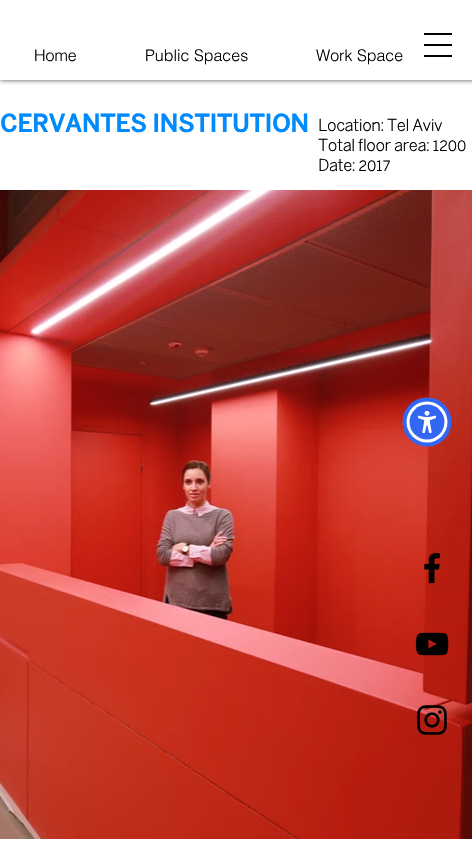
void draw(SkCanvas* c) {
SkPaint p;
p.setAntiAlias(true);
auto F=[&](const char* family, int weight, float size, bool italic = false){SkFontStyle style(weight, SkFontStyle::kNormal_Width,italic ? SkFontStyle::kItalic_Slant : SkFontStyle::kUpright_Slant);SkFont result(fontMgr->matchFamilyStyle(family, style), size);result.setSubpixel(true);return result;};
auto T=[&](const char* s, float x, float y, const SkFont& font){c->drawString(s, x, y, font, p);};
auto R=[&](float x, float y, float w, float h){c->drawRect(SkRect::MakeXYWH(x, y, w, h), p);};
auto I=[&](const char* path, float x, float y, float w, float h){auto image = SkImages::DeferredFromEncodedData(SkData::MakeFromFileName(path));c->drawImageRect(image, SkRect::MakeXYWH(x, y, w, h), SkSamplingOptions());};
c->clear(0xffffffff);
c->save();
c->clipRect(SkRect::MakeXYWH(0,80,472,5));
p.setColor(0xb3000000);
p.setMaskFilter(SkMaskFilter::MakeBlur(kNormal_SkBlurStyle, 2.5));
c->drawRect(SkRect::MakeXYWH(0,0,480,80),p);
p.setMaskFilter(nullptr);
c->restore();
auto f1 = F("helvetica",300,16);
p.setColor(0xff000000);
T("Home",34,61,f1);
T("Public Spaces",145,61,f1);
T("Work Space",316,61,f1);
R(424,33,28,2);
R(424,44,28,2);
R(424,55,28,2);
auto f2 = F("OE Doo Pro",700,24);
p.setColor(0xff008afc);
T("CERVANTES INSTITUTION",0,132,f2);
auto f3 = F("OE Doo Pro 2",700,16);
p.setColor(0xff000000);
T("Location: Tel Aviv",318,131,f3);
T("Total floor area: 1200",318,151,f3);
T("Date: 2017",318,171,f3);
I("1.png",0,190,472,649);
I("2.png",424,553,17,31);
I("3.png",415,632,34,24);
I("4.png",417,705,30,30);
p.setColor(0xff3366f3);
c->drawCircle(427,422,24.5,p);
p.setColor(0xffffffff);
c->drawCircle(427,422,20.5,p);
p.setColor(0xff3366f3);
c->drawCircle(427,422,17.5,p);
I("5.png",417,411,20,22);
}
